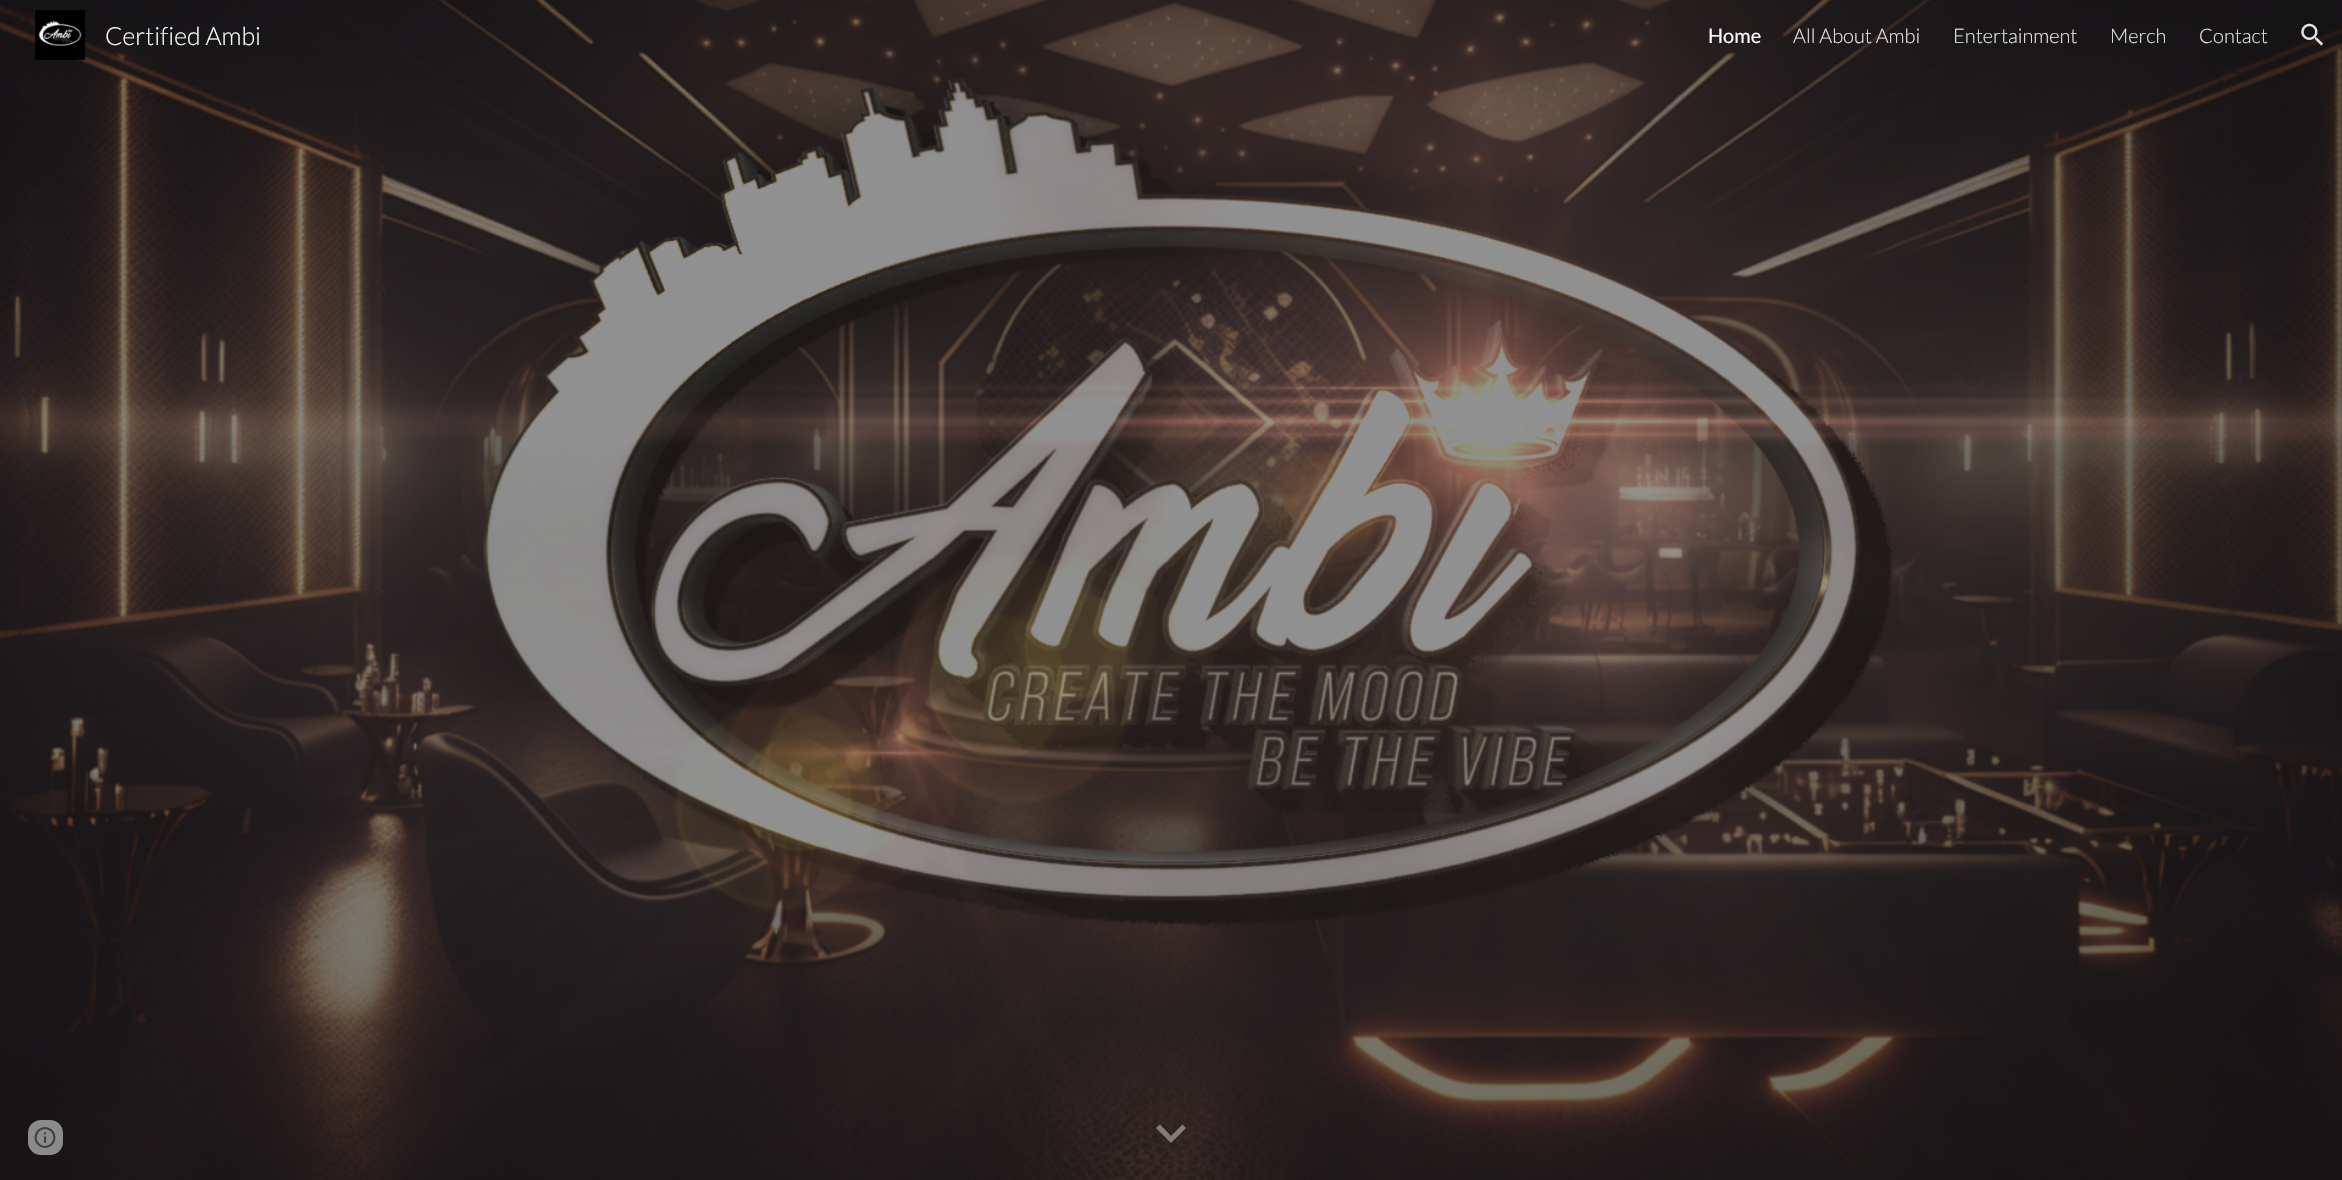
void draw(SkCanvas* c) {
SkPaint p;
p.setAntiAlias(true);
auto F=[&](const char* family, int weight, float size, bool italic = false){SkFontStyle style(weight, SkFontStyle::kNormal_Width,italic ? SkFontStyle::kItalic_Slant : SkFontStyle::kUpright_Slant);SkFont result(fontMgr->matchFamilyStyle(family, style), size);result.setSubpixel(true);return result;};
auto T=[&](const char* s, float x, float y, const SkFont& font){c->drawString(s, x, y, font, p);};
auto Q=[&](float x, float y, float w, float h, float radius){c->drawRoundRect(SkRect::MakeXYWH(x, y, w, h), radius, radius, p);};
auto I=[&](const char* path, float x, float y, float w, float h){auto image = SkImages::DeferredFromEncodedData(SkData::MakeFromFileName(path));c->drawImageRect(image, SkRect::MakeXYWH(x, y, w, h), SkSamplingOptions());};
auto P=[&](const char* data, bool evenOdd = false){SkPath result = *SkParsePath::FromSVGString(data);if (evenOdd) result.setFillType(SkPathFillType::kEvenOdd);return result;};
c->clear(0xffffffff);
I("1.png",0,0,2342,1180);
p.setColor(0x66ffffff);
c->drawPath(P("M1160 1124.5l11 11.5l11.5-11.5l3.5 3.5l-15 15l-15-15z"),p);
I("2.png",35,10,51,50);
auto f1 = F("Lato",300,25);
p.setColor(0xffffffff);
T("Certified Ambi",105,45,f1);
auto f2 = F("Lato",400,20);
T("Home",1708,43,f2);
auto f3 = F("Lato",300,20);
p.setColor(0xffe2e1e1);
T("All About Ambi",1793,43,f3);
T("Entertainment",1953,43,f3);
T("Merch",2110,43,f3);
T("Contact",2199,43,f3);
I("3.png",2301,23,22,23);
p.setColor(0x80ffffff);
Q(28,1120,35,35,13);
I("4.png",34,1127,22,21);
}
